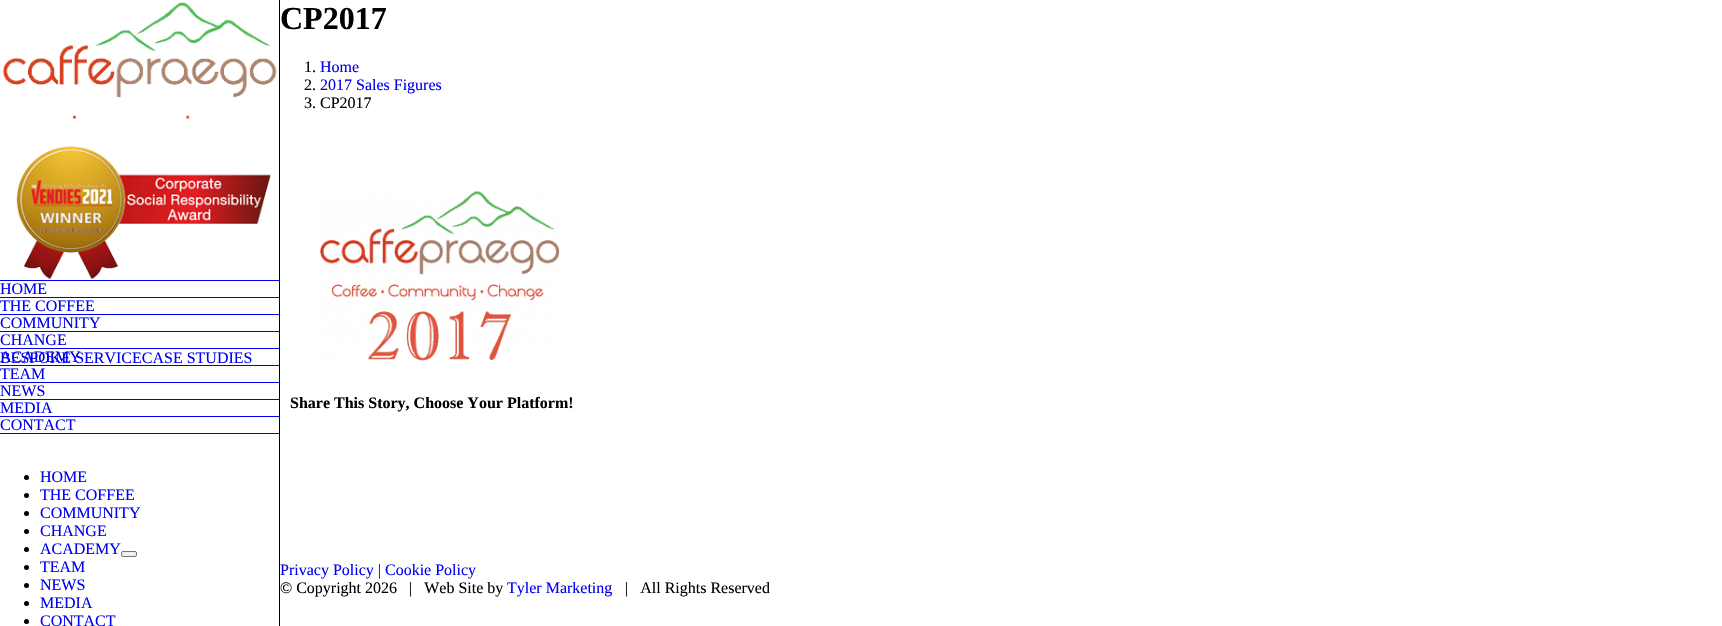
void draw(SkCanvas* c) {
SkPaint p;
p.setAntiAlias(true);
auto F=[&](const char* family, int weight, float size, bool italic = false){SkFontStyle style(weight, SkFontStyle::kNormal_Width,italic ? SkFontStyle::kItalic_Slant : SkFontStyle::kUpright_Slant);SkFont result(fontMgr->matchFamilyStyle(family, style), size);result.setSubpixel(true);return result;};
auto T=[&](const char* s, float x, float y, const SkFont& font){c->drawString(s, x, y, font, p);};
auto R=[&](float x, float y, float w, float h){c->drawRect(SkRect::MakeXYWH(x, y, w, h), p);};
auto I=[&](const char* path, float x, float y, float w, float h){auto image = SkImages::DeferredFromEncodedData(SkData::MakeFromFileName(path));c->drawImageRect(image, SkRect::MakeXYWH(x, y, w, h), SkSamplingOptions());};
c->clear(0xffffffff);
auto f1 = F("Liberation Serif",700,32);
p.setColor(0xff000000);
T("CP2017",280,29,f1);
auto f2 = F("Liberation Serif",400,16);
T("1.",304,72,f2);
p.setColor(0xff0000ee);
T("Home",320,72,f2);
p.setColor(0xff000000);
T("2.",304,90,f2);
p.setColor(0xff0000ee);
T("2017 Sales Figures",320,90,f2);
p.setColor(0xff000000);
T("3. CP2017",304,108,f2);
I("1.png",2,2,275,278);
R(279,0,1,626);
p.setColor(0xff0000ee);
R(0,280,280,1);
R(0,297,280,1);
T("HOME",0,294,f2);
R(0,314,280,1);
T("THE COFFEE",0,311,f2);
R(0,331,280,1);
T("COMMUNITY",0,328,f2);
R(0,348,280,1);
T("CHANGE",0,345,f2);
R(0,365,280,1);
T("ACADEMY",0,362,f2);
T("BESPOKE SERVICECASE STUDIES",0,363,f2);
R(0,382,280,1);
T("TEAM",0,379,f2);
R(0,399,280,1);
T("NEWS",0,396,f2);
R(0,416,280,1);
T("MEDIA",0,413,f2);
R(0,433,280,1);
T("CONTACT",0,430,f2);
p.setColor(0xff000000);
c->drawCircle(26.5,477.5,2.5,p);
p.setColor(0xff0000ee);
T("HOME",40,482,f2);
p.setColor(0xff000000);
c->drawCircle(26.5,495.5,2.5,p);
p.setColor(0xff0000ee);
T("THE COFFEE",40,500,f2);
p.setColor(0xff000000);
c->drawCircle(26.5,513.5,2.5,p);
p.setColor(0xff0000ee);
T("COMMUNITY",40,518,f2);
p.setColor(0xff000000);
c->drawCircle(26.5,531.5,2.5,p);
p.setColor(0xff0000ee);
T("CHANGE",40,536,f2);
p.setColor(0xff000000);
c->drawCircle(26.5,549.5,2.5,p);
p.setColor(0xff0000ee);
T("ACADEMY",40,554,f2);
p.setColor(0xffefefef);
c->drawRoundRect(SkRect::MakeXYWH(121.5,551.5,15,5),1.5,1.5,p);
p.setStroke(true);
p.setStrokeWidth(1);
p.setColor(0xff767676);
c->drawRoundRect(SkRect::MakeXYWH(121.5,551.5,15,5),1.5,1.5,p);
p.setStroke(false);
p.setColor(0xff000000);
c->drawCircle(26.5,567.5,2.5,p);
p.setColor(0xff0000ee);
T("TEAM",40,572,f2);
p.setColor(0xff000000);
c->drawCircle(26.5,585.5,2.5,p);
p.setColor(0xff0000ee);
T("NEWS",40,590,f2);
p.setColor(0xff000000);
c->drawCircle(26.5,603.5,2.5,p);
p.setColor(0xff0000ee);
T("MEDIA",40,608,f2);
p.setColor(0xff000000);
c->drawCircle(26.5,621.5,2.5,p);
p.setColor(0xff0000ee);
T("CONTACT",40,626,f2);
I("2.png",320,191,240,170);
auto f3 = F("Liberation Serif",700,16);
p.setColor(0xff000000);
T("Share This Story, Choose Your Platform!",290,408,f3);
p.setColor(0xff0000ee);
T("Privacy Policy | Cookie Policy",280,575,f2);
p.setColor(0xff000000);
T("© Copyright 2026   |   Web Site by",280,593,f2);
p.setColor(0xff0000ee);
T("Tyler Marketing",507,593,f2);
p.setColor(0xff000000);
T("|   All Rights Reserved",625,593,f2);
}
